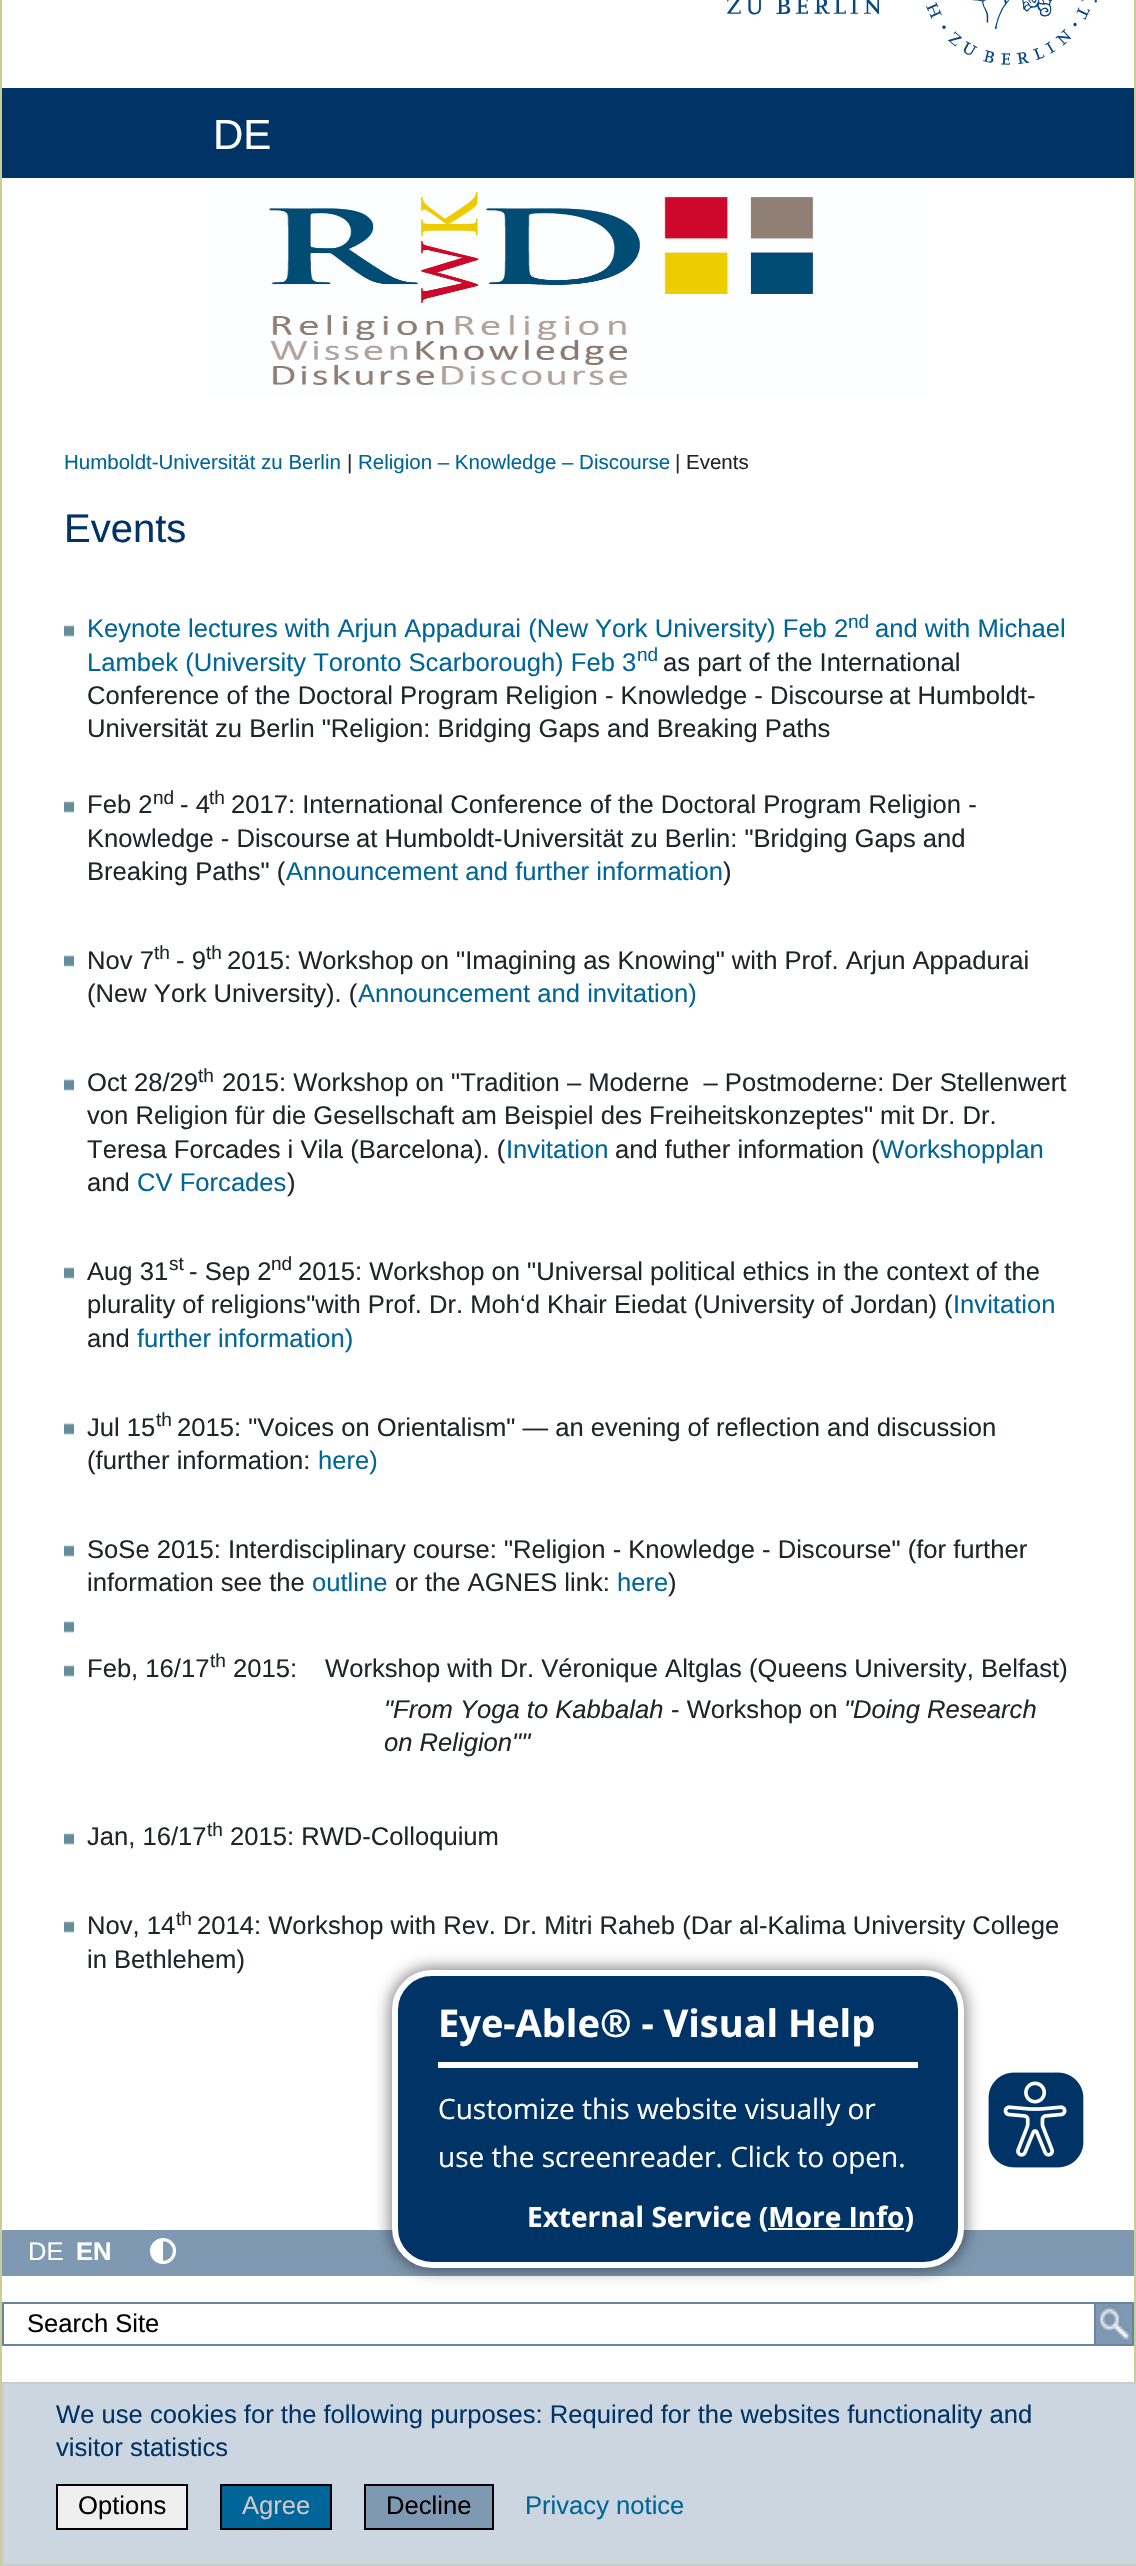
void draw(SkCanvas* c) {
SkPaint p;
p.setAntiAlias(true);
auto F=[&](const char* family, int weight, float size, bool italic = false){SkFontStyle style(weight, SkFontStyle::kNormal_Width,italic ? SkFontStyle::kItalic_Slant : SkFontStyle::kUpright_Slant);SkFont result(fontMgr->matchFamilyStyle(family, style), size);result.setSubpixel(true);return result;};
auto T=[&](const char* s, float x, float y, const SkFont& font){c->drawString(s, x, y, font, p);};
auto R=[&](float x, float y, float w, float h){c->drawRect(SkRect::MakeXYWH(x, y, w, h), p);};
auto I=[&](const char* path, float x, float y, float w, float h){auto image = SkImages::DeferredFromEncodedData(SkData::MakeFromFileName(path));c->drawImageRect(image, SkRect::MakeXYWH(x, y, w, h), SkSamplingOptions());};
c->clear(0xffffffff);
I("1.png",727,0,370,65);
p.setColor(0xff003366);
R(2,88,1132,90);
auto f1 = F("Liberation Sans",400,42);
p.setColor(0xffffffff);
T("DE",213,149,f1);
I("2.png",208,178,720,220);
p.setColor(0xffcccc99);
R(1134,0,2,2382);
R(0,0,2,2566);
auto f2 = F("Liberation Sans",400,20.5);
p.setColor(0xff006699);
T("Humboldt-Universität zu Berlin",64,469,f2);
p.setColor(0xff212529);
T("|",347,469,f2);
p.setColor(0xff006699);
T("Religion – Knowledge – Discourse",358,469,f2);
p.setColor(0xff212529);
T("| Events",675,469,f2);
auto f3 = F("Liberation Sans",400,40);
p.setColor(0xff003366);
T("Events",64,542,f3);
I("3.png",64,625,10,12);
auto f4 = F("Liberation Sans",400,25.6);
p.setColor(0xff006699);
T("Keynote lectures with Arjun Appadurai (New York University) Feb 2",87,637,f4);
auto f5 = F("Liberation Sans",400,19);
T("nd",848,628,f5);
T("and with Michael",875,637,f4);
T("Lambek (University Toronto Scarborough) Feb 3",87,671,f4);
T("nd",637,661,f5);
p.setColor(0xff212529);
T("as part of the International",663,671,f4);
T("Conference of the Doctoral Program Religion - Knowledge - Discourse",87,704,f4);
T("at Humboldt-",889,704,f4);
T("Universität zu Berlin \"Religion: Bridging Gaps and Breaking Paths",87,737,f4);
I("3.png",64,801,10,12);
T("Feb 2",87,813,f4);
T("nd",153,804,f5);
T("- 4",180,813,f4);
T("th",209,804,f5);
T("2017: International Conference of the Doctoral Program Religion -",231,813,f4);
T("Knowledge - Discourse",87,847,f4);
T("at Humboldt-Universität zu Berlin: \"Bridging Gaps and",356,847,f4);
T("Breaking Paths\" (",87,880,f4);
p.setColor(0xff006699);
T("Announcement and further information",286,880,f4);
p.setColor(0xff212529);
T(")",723,880,f4);
I("3.png",64,955,10,12);
T("Nov 7",87,969,f4);
T("th",154,959,f5);
T("- 9",176,969,f4);
T("th",206,959,f5);
T("2015: Workshop on \"Imagining as Knowing\" with Prof. Arjun Appadurai",227,969,f4);
T("(New York University). (",87,1002,f4);
p.setColor(0xff006699);
T("Announcement and invitation)",358,1002,f4);
I("3.png",64,1079,10,12);
p.setColor(0xff212529);
T("Oct 28/29",87,1091,f4);
T("th",198,1082,f5);
T("2015: Workshop on \"Tradition – Moderne  – Postmoderne: Der Stellenwert",222,1091,f4);
T("von Religion für die Gesellschaft am Beispiel des Freiheitskonzeptes\" mit Dr. Dr.",87,1124,f4);
T("Teresa Forcades i Vila (Barcelona). (",87,1158,f4);
p.setColor(0xff006699);
T("Invitation",506,1158,f4);
p.setColor(0xff212529);
T("and futher information (",615,1158,f4);
p.setColor(0xff006699);
T("Workshopplan",880,1158,f4);
p.setColor(0xff212529);
T("and",87,1191,f4);
p.setColor(0xff006699);
T("CV Forcades",137,1191,f4);
p.setColor(0xff212529);
T(")",287,1191,f4);
I("3.png",64,1267,10,12);
T("Aug 31",87,1280,f4);
T("st",169,1270,f5);
T("- Sep 2",189,1280,f4);
T("nd",271,1270,f5);
T("2015: Workshop on \"Universal political ethics in the context of the",298,1280,f4);
T("plurality of religions\"with Prof. Dr. Moh‘d Khair Eiedat (University of Jordan) (",87,1313,f4);
p.setColor(0xff006699);
T("Invitation",953,1313,f4);
p.setColor(0xff212529);
T("and",87,1347,f4);
p.setColor(0xff006699);
T("further information)",137,1347,f4);
I("3.png",64,1423,10,12);
p.setColor(0xff212529);
T("Jul 15",87,1436,f4);
T("th",156,1426,f5);
T("2015: \"Voices on Orientalism\" — an evening of reflection and discussion",177,1436,f4);
T("(further information:",87,1469,f4);
p.setColor(0xff006699);
T("here)",318,1469,f4);
I("3.png",64,1545,10,12);
p.setColor(0xff212529);
T("SoSe 2015: Interdisciplinary course: \"Religion - Knowledge - Discourse\" (for further",87,1558,f4);
T("information see the",87,1591,f4);
p.setColor(0xff006699);
T("outline",312,1591,f4);
p.setColor(0xff212529);
T("or the AGNES link:",395,1591,f4);
p.setColor(0xff006699);
T("here",617,1591,f4);
p.setColor(0xff212529);
T(")",668,1591,f4);
I("3.png",64,1621,10,12);
I("3.png",64,1665,10,12);
T("Feb, 16/17",87,1677,f4);
T("th",210,1667,f5);
T("2015:",233,1677,f4);
T("Workshop with Dr. Véronique Altglas (Queens University, Belfast)",325,1677,f4);
auto f6 = F("Liberation Sans",400,25.6,true);
T("\"From Yoga to Kabbalah",384,1718,f6);
T("- Workshop on",671,1718,f4);
T("\"Doing Research",844,1718,f6);
T("on Religion\"\"",384,1751,f6);
I("3.png",64,1833,10,12);
T("Jan, 16/17",87,1845,f4);
T("th",207,1836,f5);
T("2015: RWD-Colloquium",230,1845,f4);
I("3.png",64,1921,10,12);
T("Nov, 14",87,1934,f4);
T("th",176,1925,f5);
T("2014: Workshop with Rev. Dr. Mitri Raheb (Dar al-Kalima University College",197,1934,f4);
T("in Bethlehem)",87,1968,f4);
p.setColor(0xff8099b2);
R(2,2230,1132,46);
p.setColor(0xffffffff);
T("DE",28,2260,f4);
auto f7 = F("Liberation Sans",700,25.6);
T("EN",76,2260,f7);
I("4.png",150,2238,26,26);
p.setStroke(true);
p.setStrokeWidth(2);
p.setColor(0xff6685a3);
c->drawRect(SkRect::MakeXYWH(3,2303,1130,42),p);
p.setStroke(false);
p.setColor(0xff000000);
T("Search Site",27,2332,f4);
p.setStroke(true);
p.setColor(0xff6685a3);
c->drawRect(SkRect::MakeXYWH(1095,2303,38,42),p);
I("5.png",1096,2304,36,40);
p.setStroke(false);
p.setColor(0x80000000);
p.setMaskFilter(SkMaskFilter::MakeBlur(kNormal_SkBlurStyle, 8));
c->drawRoundRect(SkRect::MakeXYWH(390,1968,576,302),42,42,p);
p.setMaskFilter(nullptr);
p.setColor(0xff003366);
c->drawRoundRect(SkRect::MakeXYWH(395,1973,566,292),37,37,p);
p.setStroke(true);
p.setStrokeWidth(6);
p.setColor(0xffffffff);
c->drawRoundRect(SkRect::MakeXYWH(395,1973,566,292),37,37,p);
p.setStroke(false);
R(438,2062,480,6);
auto f8 = F("Open Sans",700,38);
T("Eye-Able® - Visual Help",438,2037,f8);
auto f9 = F("Open Sans",400,28);
T("Customize this website visually or",438,2119,f9);
T("use the screenreader. Click to open.",438,2167,f9);
auto f10 = F("Open Sans",700,28);
T("External Service (More Info)",527,2227,f10);
R(768,2228,136,2);
I("6.png",988,2072,96,96);
p.setColor(0xffccd6e0);
c->drawRect(SkRect::MakeXYWH(3,2383,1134,182),p);
p.setStroke(true);
p.setStrokeWidth(2);
p.setColor(0xffcccccc);
c->drawRect(SkRect::MakeXYWH(3,2383,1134,182),p);
p.setStroke(false);
p.setColor(0xff003366);
T("We use cookies for the following purposes: Required for the websites functionality and",56,2423,f4);
T("visitor statistics",56,2456,f4);
p.setColor(0xffefefef);
c->drawRect(SkRect::MakeXYWH(57,2485,130,44),p);
p.setStroke(true);
p.setColor(0xff000000);
c->drawRect(SkRect::MakeXYWH(57,2485,130,44),p);
p.setStroke(false);
T("Options",78,2514,f4);
p.setColor(0xff006699);
c->drawRect(SkRect::MakeXYWH(221,2485,110,44),p);
p.setStroke(true);
p.setColor(0xff000000);
c->drawRect(SkRect::MakeXYWH(221,2485,110,44),p);
p.setStroke(false);
p.setColor(0xffd5c7c7);
T("Agree",242,2514,f4);
p.setColor(0xff8099b2);
c->drawRect(SkRect::MakeXYWH(365,2485,128,44),p);
p.setStroke(true);
p.setColor(0xff000000);
c->drawRect(SkRect::MakeXYWH(365,2485,128,44),p);
p.setStroke(false);
T("Decline",386,2514,f4);
p.setColor(0xff006699);
T("Privacy notice",525,2514,f4);
}
